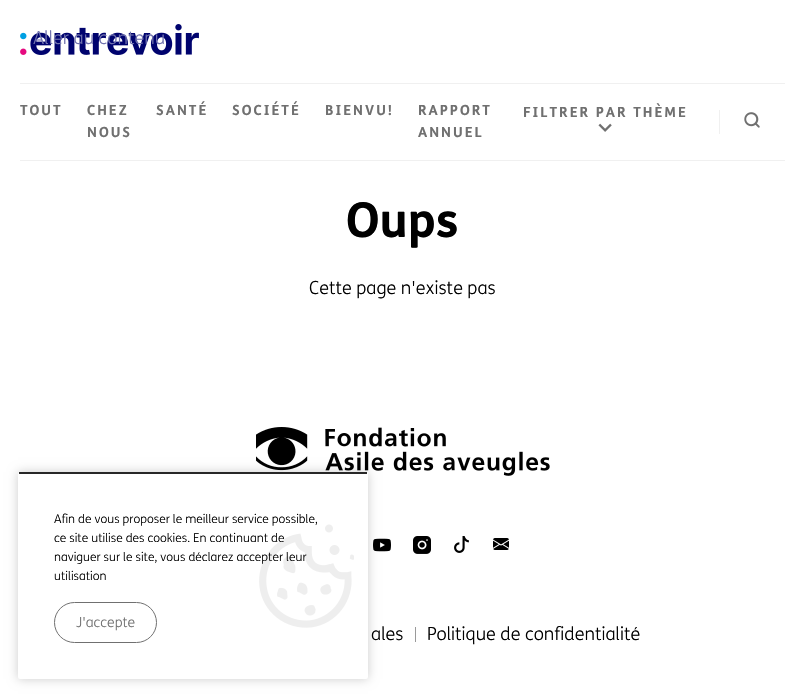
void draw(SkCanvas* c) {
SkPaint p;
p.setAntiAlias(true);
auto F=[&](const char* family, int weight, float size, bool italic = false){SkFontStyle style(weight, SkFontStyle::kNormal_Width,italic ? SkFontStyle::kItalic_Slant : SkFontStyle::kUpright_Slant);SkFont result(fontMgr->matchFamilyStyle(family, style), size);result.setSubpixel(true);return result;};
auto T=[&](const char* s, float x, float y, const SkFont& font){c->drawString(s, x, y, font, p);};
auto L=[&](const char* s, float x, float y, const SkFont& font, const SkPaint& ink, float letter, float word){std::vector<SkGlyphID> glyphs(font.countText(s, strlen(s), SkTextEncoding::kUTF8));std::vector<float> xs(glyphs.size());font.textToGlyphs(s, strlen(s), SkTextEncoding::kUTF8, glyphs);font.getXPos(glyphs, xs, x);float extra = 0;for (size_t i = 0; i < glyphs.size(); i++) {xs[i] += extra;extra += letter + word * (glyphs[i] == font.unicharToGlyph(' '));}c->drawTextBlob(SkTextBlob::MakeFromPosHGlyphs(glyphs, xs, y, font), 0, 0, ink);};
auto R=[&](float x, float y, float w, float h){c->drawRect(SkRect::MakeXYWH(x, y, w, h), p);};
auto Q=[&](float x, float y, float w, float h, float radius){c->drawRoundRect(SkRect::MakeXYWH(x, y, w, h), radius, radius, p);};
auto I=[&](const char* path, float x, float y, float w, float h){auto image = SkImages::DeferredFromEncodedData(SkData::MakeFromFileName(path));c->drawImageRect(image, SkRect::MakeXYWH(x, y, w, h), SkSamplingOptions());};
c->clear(0xffffffff);
I("1.png",20,24,179,31);
auto f1 = F("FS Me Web",300,18);
p.setColor(0xff7072ae);
T("Aller au contenu",33,44,f1);
p.setColor(0xfff0f0f0);
R(20,83,765,1);
R(20,160,765,1);
auto f2 = F("FS Me Web",700,14);
p.setColor(0xff707070);
L("TOUT",20,115,f2,p,2,0);
L("CHEZ",87,115,f2,p,2,0);
L("NOUS",87,137,f2,p,2,0);
L("SANTÉ",156,115,f2,p,2,0);
L("SOCIÉTÉ",232,115,f2,p,2,0);
L("BIENVU!",325,115,f2,p,2,0);
L("RAPPORT",418,115,f2,p,2,0);
L("ANNUEL",418,137,f2,p,2,0);
L("FILTRER PAR THÈME",523,117,f2,p,2,0);
I("2.png",598,123,14,9);
p.setColor(0xfff0f0f0);
R(719,110,1,24);
I("3.png",744,112,16,16);
auto f3 = F("FS Me Web",700,48);
p.setColor(0xff000000);
T("Oups",346,237,f3);
T("Cette page n'existe pas",309,294,f1);
I("5.png",256,427,294,49);
I("6.png",373,538,18,14);
p.setColor(0x33000000);
p.setMaskFilter(SkMaskFilter::MakeBlur(kNormal_SkBlurStyle, 5));
c->drawRect(SkRect::MakeXYWH(18,472,350,207),p);
p.setMaskFilter(nullptr);
p.setColor(0xffffffff);
Q(18,472,350,207,2);
p.setColor(0xff272727);
R(19,472,348,2);
I("4.png",259,524,95,104);
auto f4 = F("FS Me Web",300,12);
p.setColor(0xff000000);
T("Afin de vous proposer le meilleur service possible,",54,523,f4);
T("ce site utilise des cookies. En continuant de",54,542,f4);
T("naviguer sur le site, vous déclarez accepter leur",54,561,f4);
T("utilisation",54,580,f4);
p.setStroke(true);
p.setStrokeWidth(1);
p.setColor(0xff707070);
c->drawRoundRect(SkRect::MakeXYWH(54.5,602.5,102,40),20,20,p);
auto f5 = F("FS Me Web",300,14);
p.setStroke(false);
T("J'accepte",76,627,f5);
I("7.png",413,536,18,18);
I("8.png",454,536,15,17);
I("9.png",493,538,16,12);
p.setColor(0xff000000);
T("ales",371,640,f1);
p.setColor(0xff9a9a9a);
R(415,627,1,15);
p.setColor(0xff000000);
T("Politique de confidentialité",427,640,f1);
}
